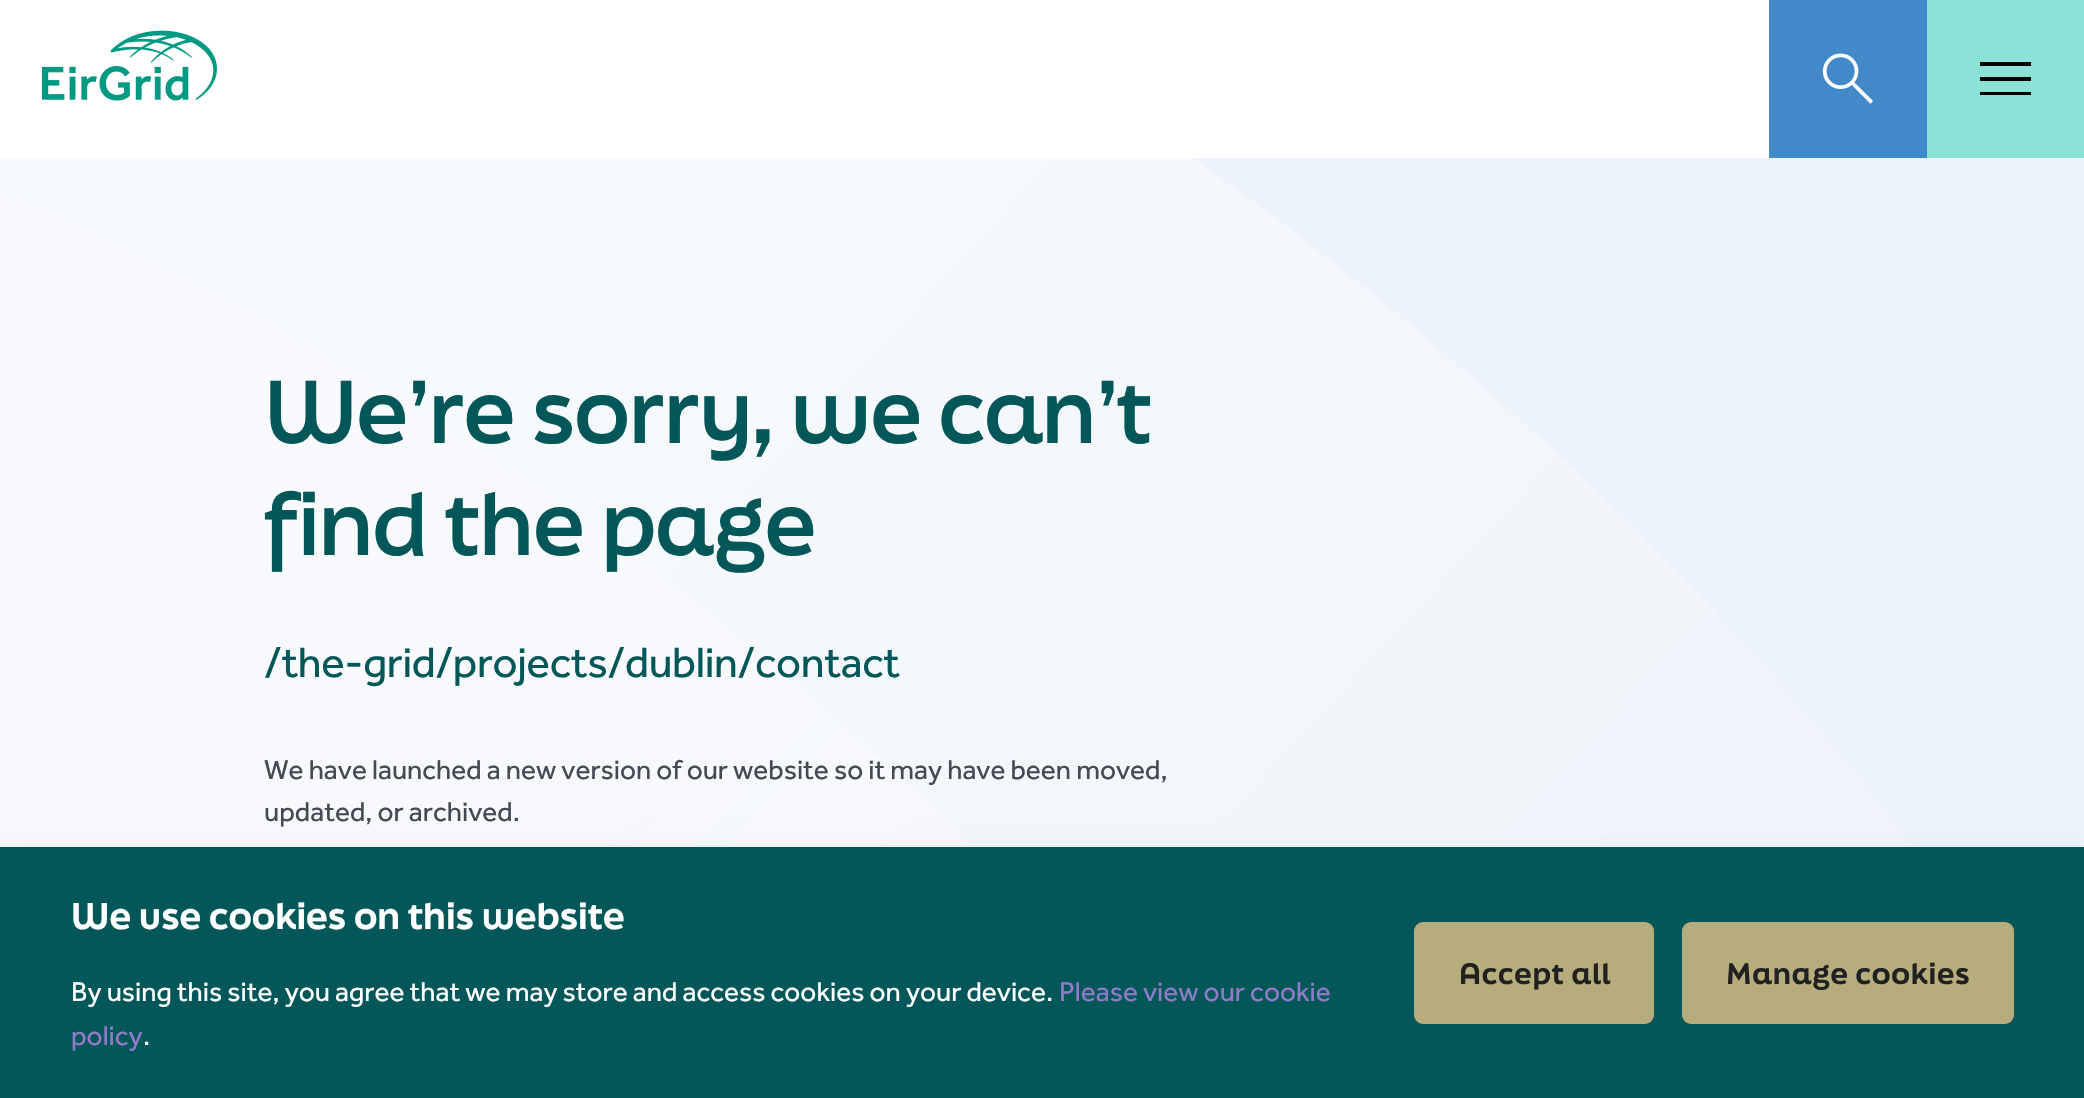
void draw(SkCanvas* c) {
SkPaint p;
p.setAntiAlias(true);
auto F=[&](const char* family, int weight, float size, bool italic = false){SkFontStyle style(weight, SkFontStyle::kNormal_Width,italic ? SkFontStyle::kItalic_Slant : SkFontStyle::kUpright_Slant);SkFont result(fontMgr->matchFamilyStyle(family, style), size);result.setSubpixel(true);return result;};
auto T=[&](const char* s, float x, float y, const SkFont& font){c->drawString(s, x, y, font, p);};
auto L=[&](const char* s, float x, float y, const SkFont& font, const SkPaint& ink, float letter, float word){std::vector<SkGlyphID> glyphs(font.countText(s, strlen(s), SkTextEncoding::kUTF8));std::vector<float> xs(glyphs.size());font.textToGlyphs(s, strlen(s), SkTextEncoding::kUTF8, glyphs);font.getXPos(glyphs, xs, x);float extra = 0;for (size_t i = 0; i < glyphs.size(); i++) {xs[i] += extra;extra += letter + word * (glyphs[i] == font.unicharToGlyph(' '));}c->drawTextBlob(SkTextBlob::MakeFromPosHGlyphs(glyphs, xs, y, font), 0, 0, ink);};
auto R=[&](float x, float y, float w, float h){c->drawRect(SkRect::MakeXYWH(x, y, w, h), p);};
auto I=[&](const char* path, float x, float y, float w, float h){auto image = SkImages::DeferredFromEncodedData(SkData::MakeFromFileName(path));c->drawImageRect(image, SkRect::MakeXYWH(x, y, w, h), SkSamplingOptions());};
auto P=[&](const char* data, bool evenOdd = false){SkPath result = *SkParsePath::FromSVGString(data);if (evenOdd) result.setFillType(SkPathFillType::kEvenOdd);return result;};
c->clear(0xffffffff);
I("1.png",42,30,175,71);
p.setColor(0xff4189c9);
R(1769,0,158,158);
I("2.png",1822,53,51,51);
p.setColor(0xff8ae3d6);
R(1927,0,157,158);
p.setColor(0xff000000);
c->drawPath(P("M1980 95v-3h51v3zm0-14v-4h51v4zm0-15v-4h51v4z"),p);
p.setColor(0xffecf3fa);
R(0,158,2084,689);
{
const SkColor colors[] = {0xfff7f9fd,0xffeef2fa};
const float stops[] = {0,1};
const SkPoint ends[] = {{1524,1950}, {-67,447}};
p.setShader(SkGradientShader::MakeLinear(ends, colors, stops, 2, SkTileMode::kClamp));
p.setAlpha(255);
}
c->drawOval(SkRect::MakeXYWH(-4371,-63,6268,6258),p);
c->save();
c->clipRect(SkRect::MakeXYWH(0,158,2084,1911));
{
const SkColor colors[] = {0x91ffffff,0x00ffffff};
const float stops[] = {0,1};
const SkPoint ends[] = {{244,347}, {1893,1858}};
p.setShader(SkGradientShader::MakeLinear(ends, colors, stops, 2, SkTileMode::kClamp));
p.setAlpha(255);
}
c->drawOval(SkRect::MakeXYWH(-3992,-437.5,6588,6578),p);
c->restore();
auto f1 = F("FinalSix",700,84);
p.setShader(nullptr);
p.setColor(0xff035759);
L("We’re sorry, we can’t",264,443,f1,p,-1.4,0);
L("find the page",264,555,f1,p,-1.4,0);
auto f2 = F("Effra",400,43.75);
L("/the-grid/projects/dublin/contact",264,677,f2,p,-.35,0);
auto f3 = F("Effra",400,28);
p.setColor(0xff444954);
T("We have launched a new version of our website so it may have been moved,",264,779,f3);
T("updated, or archived.",264,821,f3);
p.setColor(0x26000000);
p.setMaskFilter(SkMaskFilter::MakeBlur(kNormal_SkBlurStyle, 14));
c->drawRect(SkRect::MakeXYWH(0,861,2084,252),p);
p.setMaskFilter(nullptr);
p.setColor(0xff035759);
R(0,847,2084,251);
auto f4 = F("FinalSix",800,35);
p.setColor(0xffffffff);
T("We use cookies on this website",71,929,f4);
T("By using this site, you agree that we may store and access cookies on your device.",71,1001,f3);
p.setColor(0xff907bc8);
T("Please view our cookie",1059,1001,f3);
T("policy",71,1045,f3);
p.setColor(0xffffffff);
T(".",143,1045,f3);
p.setColor(0xffb6ac7c);
c->drawRoundRect(SkRect::MakeXYWH(1415,923,238,100),8,8,p);
p.setStroke(true);
p.setStrokeWidth(2);
c->drawRoundRect(SkRect::MakeXYWH(1415,923,238,100),8,8,p);
auto f5 = F("FinalSix",800,28);
p.setStroke(false);
p.setColor(0xff212121);
L("Accept all",1459,984,f5,p,.75,0);
p.setColor(0xffb6ac7c);
c->drawRoundRect(SkRect::MakeXYWH(1683,923,330,100),8,8,p);
p.setStroke(true);
c->drawRoundRect(SkRect::MakeXYWH(1683,923,330,100),8,8,p);
p.setStroke(false);
p.setColor(0xff212121);
L("Manage cookies",1726,984,f5,p,.75,0);
}
